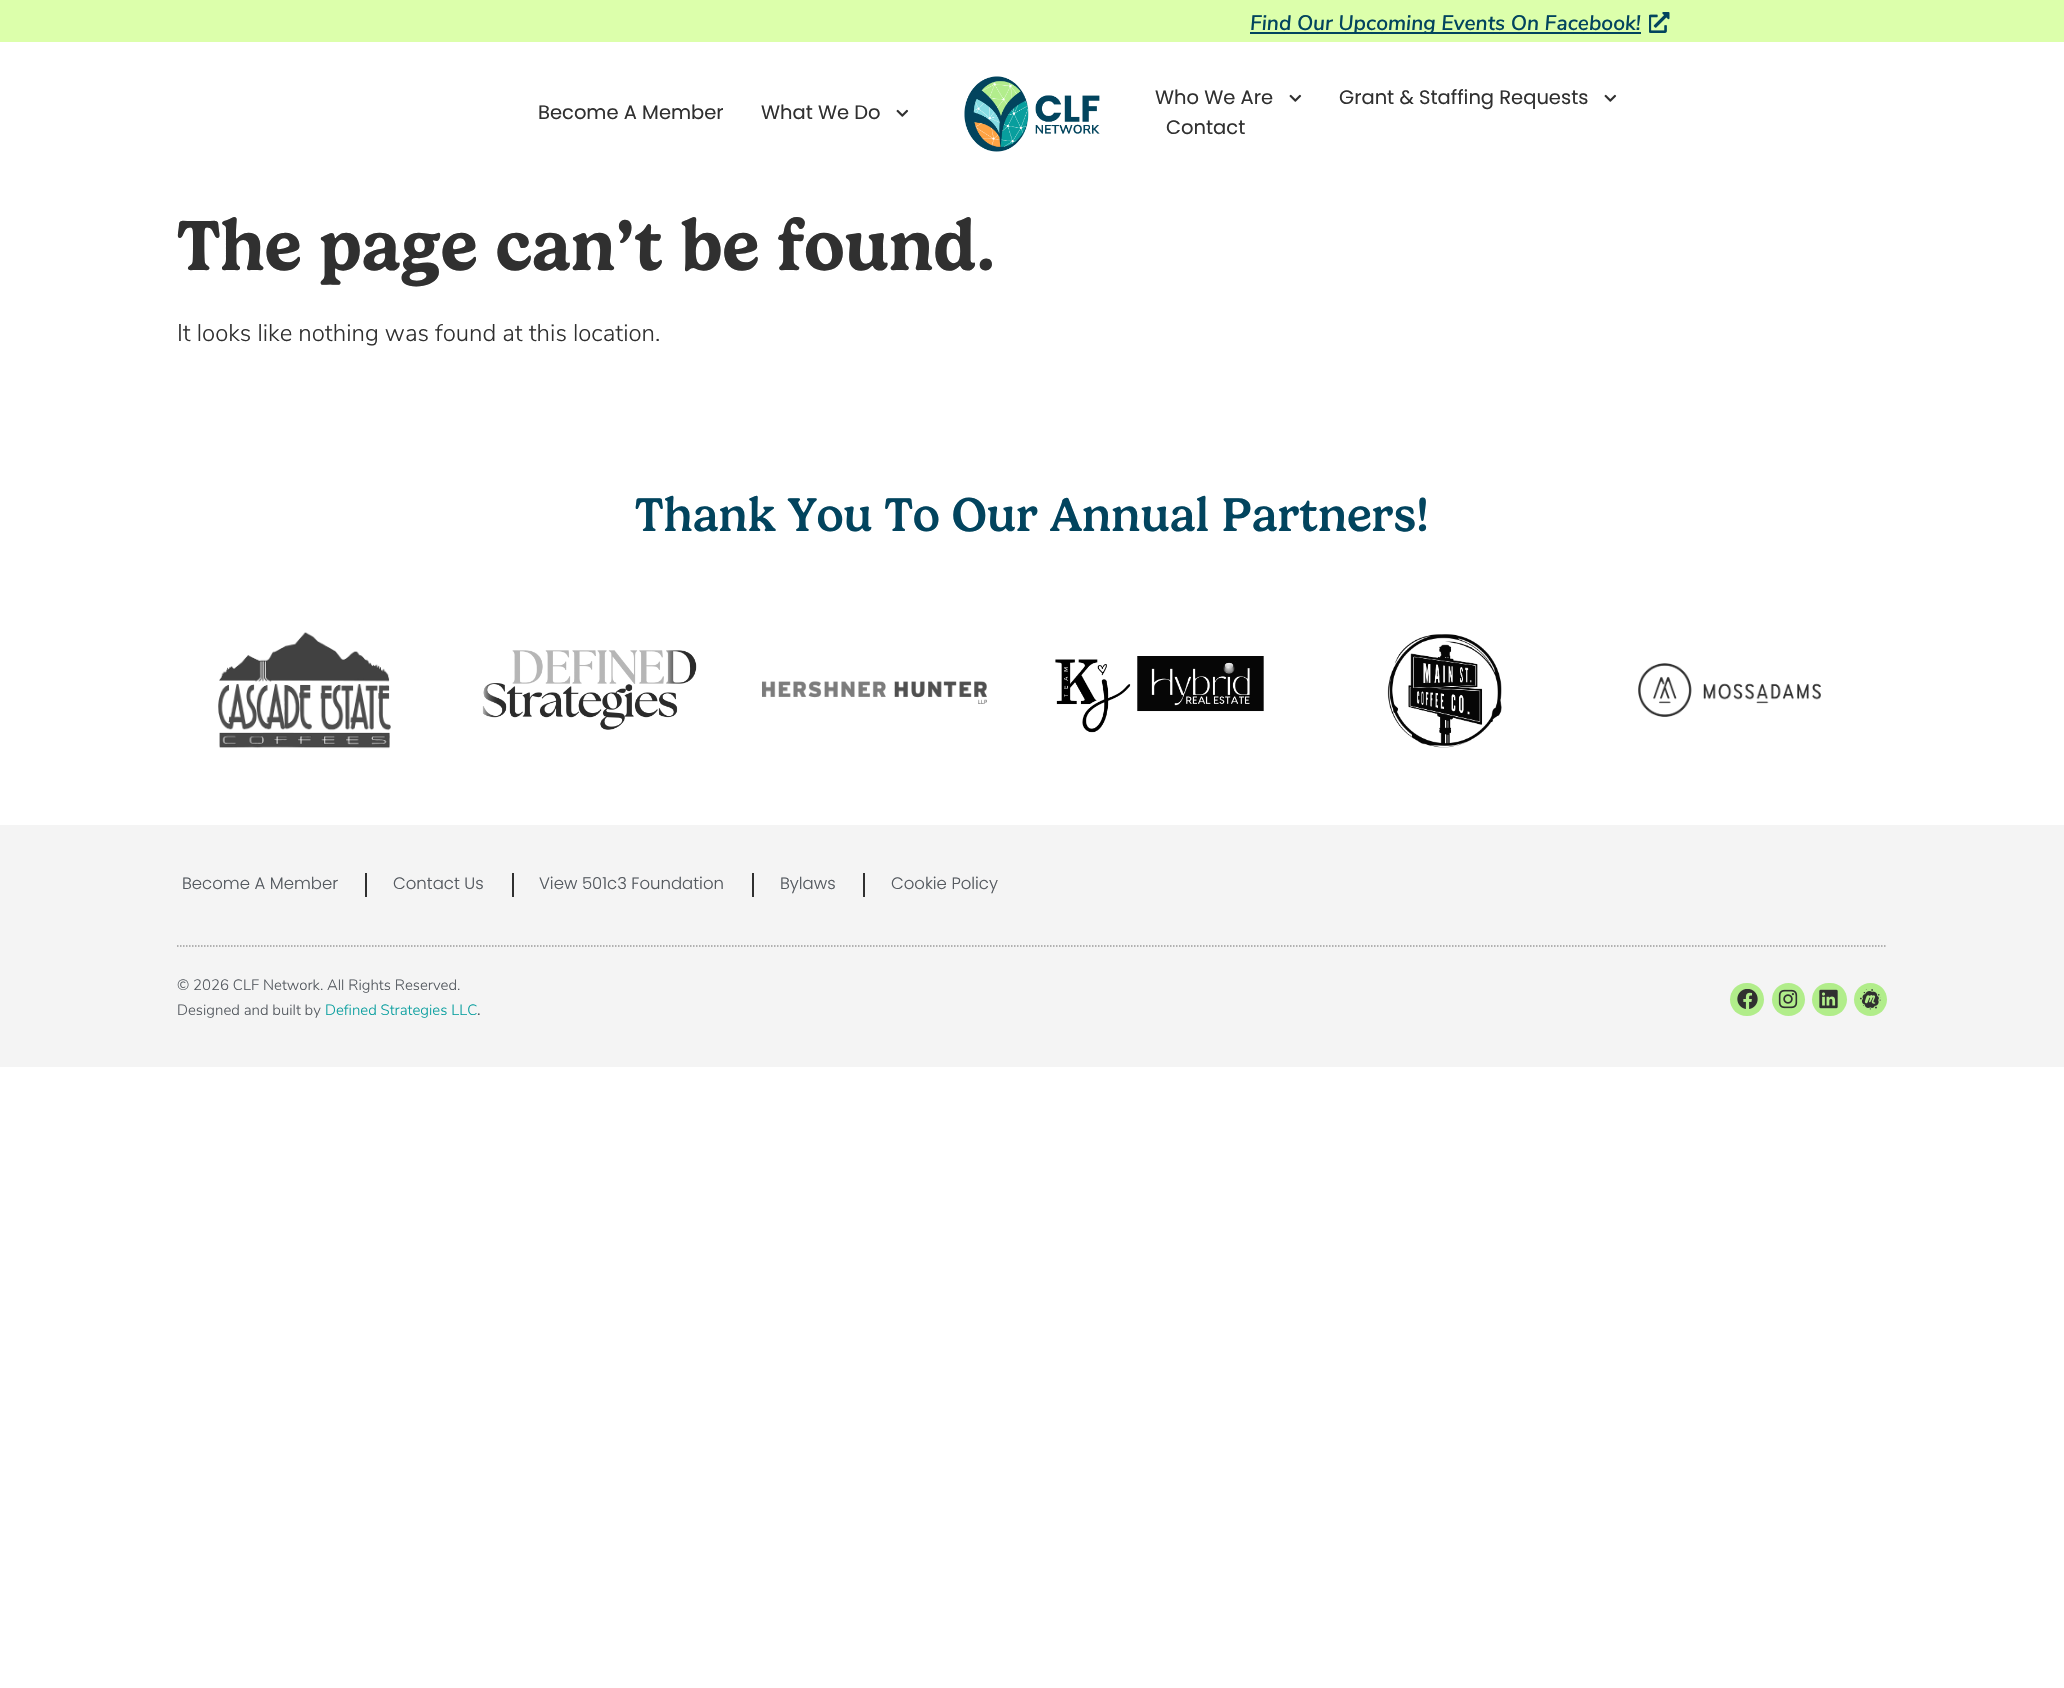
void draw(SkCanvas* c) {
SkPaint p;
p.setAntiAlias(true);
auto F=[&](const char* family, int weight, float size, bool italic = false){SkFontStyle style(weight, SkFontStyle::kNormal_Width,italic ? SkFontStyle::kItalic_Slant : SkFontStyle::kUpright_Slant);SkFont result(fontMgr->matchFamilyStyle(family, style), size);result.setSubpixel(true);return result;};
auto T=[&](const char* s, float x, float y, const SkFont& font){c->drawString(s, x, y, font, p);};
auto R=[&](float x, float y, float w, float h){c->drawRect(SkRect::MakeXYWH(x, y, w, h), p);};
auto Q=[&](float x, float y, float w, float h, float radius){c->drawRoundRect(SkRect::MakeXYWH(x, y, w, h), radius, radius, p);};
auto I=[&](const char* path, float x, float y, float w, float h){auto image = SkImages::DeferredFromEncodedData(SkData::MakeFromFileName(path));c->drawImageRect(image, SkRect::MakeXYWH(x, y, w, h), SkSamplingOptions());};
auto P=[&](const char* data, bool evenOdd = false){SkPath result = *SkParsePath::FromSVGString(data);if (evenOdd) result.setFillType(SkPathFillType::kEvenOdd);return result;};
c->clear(0xffffffff);
p.setColor(0xffdcffab);
R(0,0,2064,42);
p.setColor(0xff02445e);
R(1250,32,391,2);
auto f1 = F("Nunito Sans",600,21,true);
T("Find Our Upcoming Events On Facebook!",1250,30,f1);
I("1.png",1649,12,21,21);
auto f2 = F("Poppins",400,19.5);
p.setColor(0xff303030);
T("Become A Member",538,119,f2);
T("What We Do",761,119,f2);
I("2.png",896,109,13,8);
I("3.png",964,76,136,76);
T("Who We Are",1155,104,f2);
I("2.png",1289,94,13,8);
T("Grant & Staffing Requests",1339,104,f2);
I("2.png",1604,94,13,8);
T("Contact",1166,134,f2);
auto f3 = F("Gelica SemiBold",600,72);
T("The page can’t be found.",177,270,f3);
auto f4 = F("Nunito Sans",300,24);
T("It looks like nothing was found at this location.",177,341,f4);
auto f5 = F("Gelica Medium",500,48);
p.setColor(0xff02445e);
T("Thank You To Our Annual Partners!",635,531,f5);
I("4.png",218,632,173,117);
I("5.png",482,650,215,80);
I("6.png",762,681,225,23);
I("7.png",1055,656,209,77);
I("8.png",1387,634,115,114);
I("9.png",1638,663,183,54);
p.setColor(0xfff4f4f4);
R(0,825,2064,242);
p.setStroke(true);
p.setStrokeWidth(1.5);
p.setColor(0xff9b9b9b);
p.setPathEffect(SkDashPathEffect::Make({{1.5f,1.5f}}, 0));
c->drawPath(P("M177 946h1710"),p);
p.setPathEffect(nullptr);
auto f6 = F("Poppins",300,16.5);
p.setStroke(false);
p.setColor(0xff54595f);
T("Become A Member",182,889,f6);
p.setColor(0xff303030);
R(365,873,2,24);
p.setColor(0xff54595f);
T("Contact Us",393,889,f6);
p.setColor(0xff303030);
R(512,873,2,24);
p.setColor(0xff54595f);
T("View 501c3 Foundation",539,889,f6);
p.setColor(0xff303030);
R(752,873,2,24);
p.setColor(0xff54595f);
T("Bylaws",780,889,f6);
p.setColor(0xff303030);
R(863,873,2,24);
p.setColor(0xff54595f);
T("Cookie Policy",891,889,f6);
auto f7 = F("Nunito Sans",300,15);
T("© 2026 CLF Network. All Rights Reserved.",177,990,f7);
T("Designed and built by",177,1015,f7);
p.setColor(0xff079e9e);
T("Defined Strategies LLC",325,1015,f7);
auto f8 = F("Nunito Sans",400,15);
p.setColor(0xff54595f);
T(".",477,1015,f8);
p.setColor(0xffb1ed8a);
Q(1730,983,34,33,16.5);
I("10.png",1737,989,21,20);
c->drawCircle(1788.5,999.5,16.5,p);
I("11.png",1778,989,20,20);
Q(1812,983,35,33,16.5);
I("12.png",1819,989,19,20);
c->drawCircle(1870.5,999.5,16.5,p);
I("13.png",1860,989,21,21);
}
